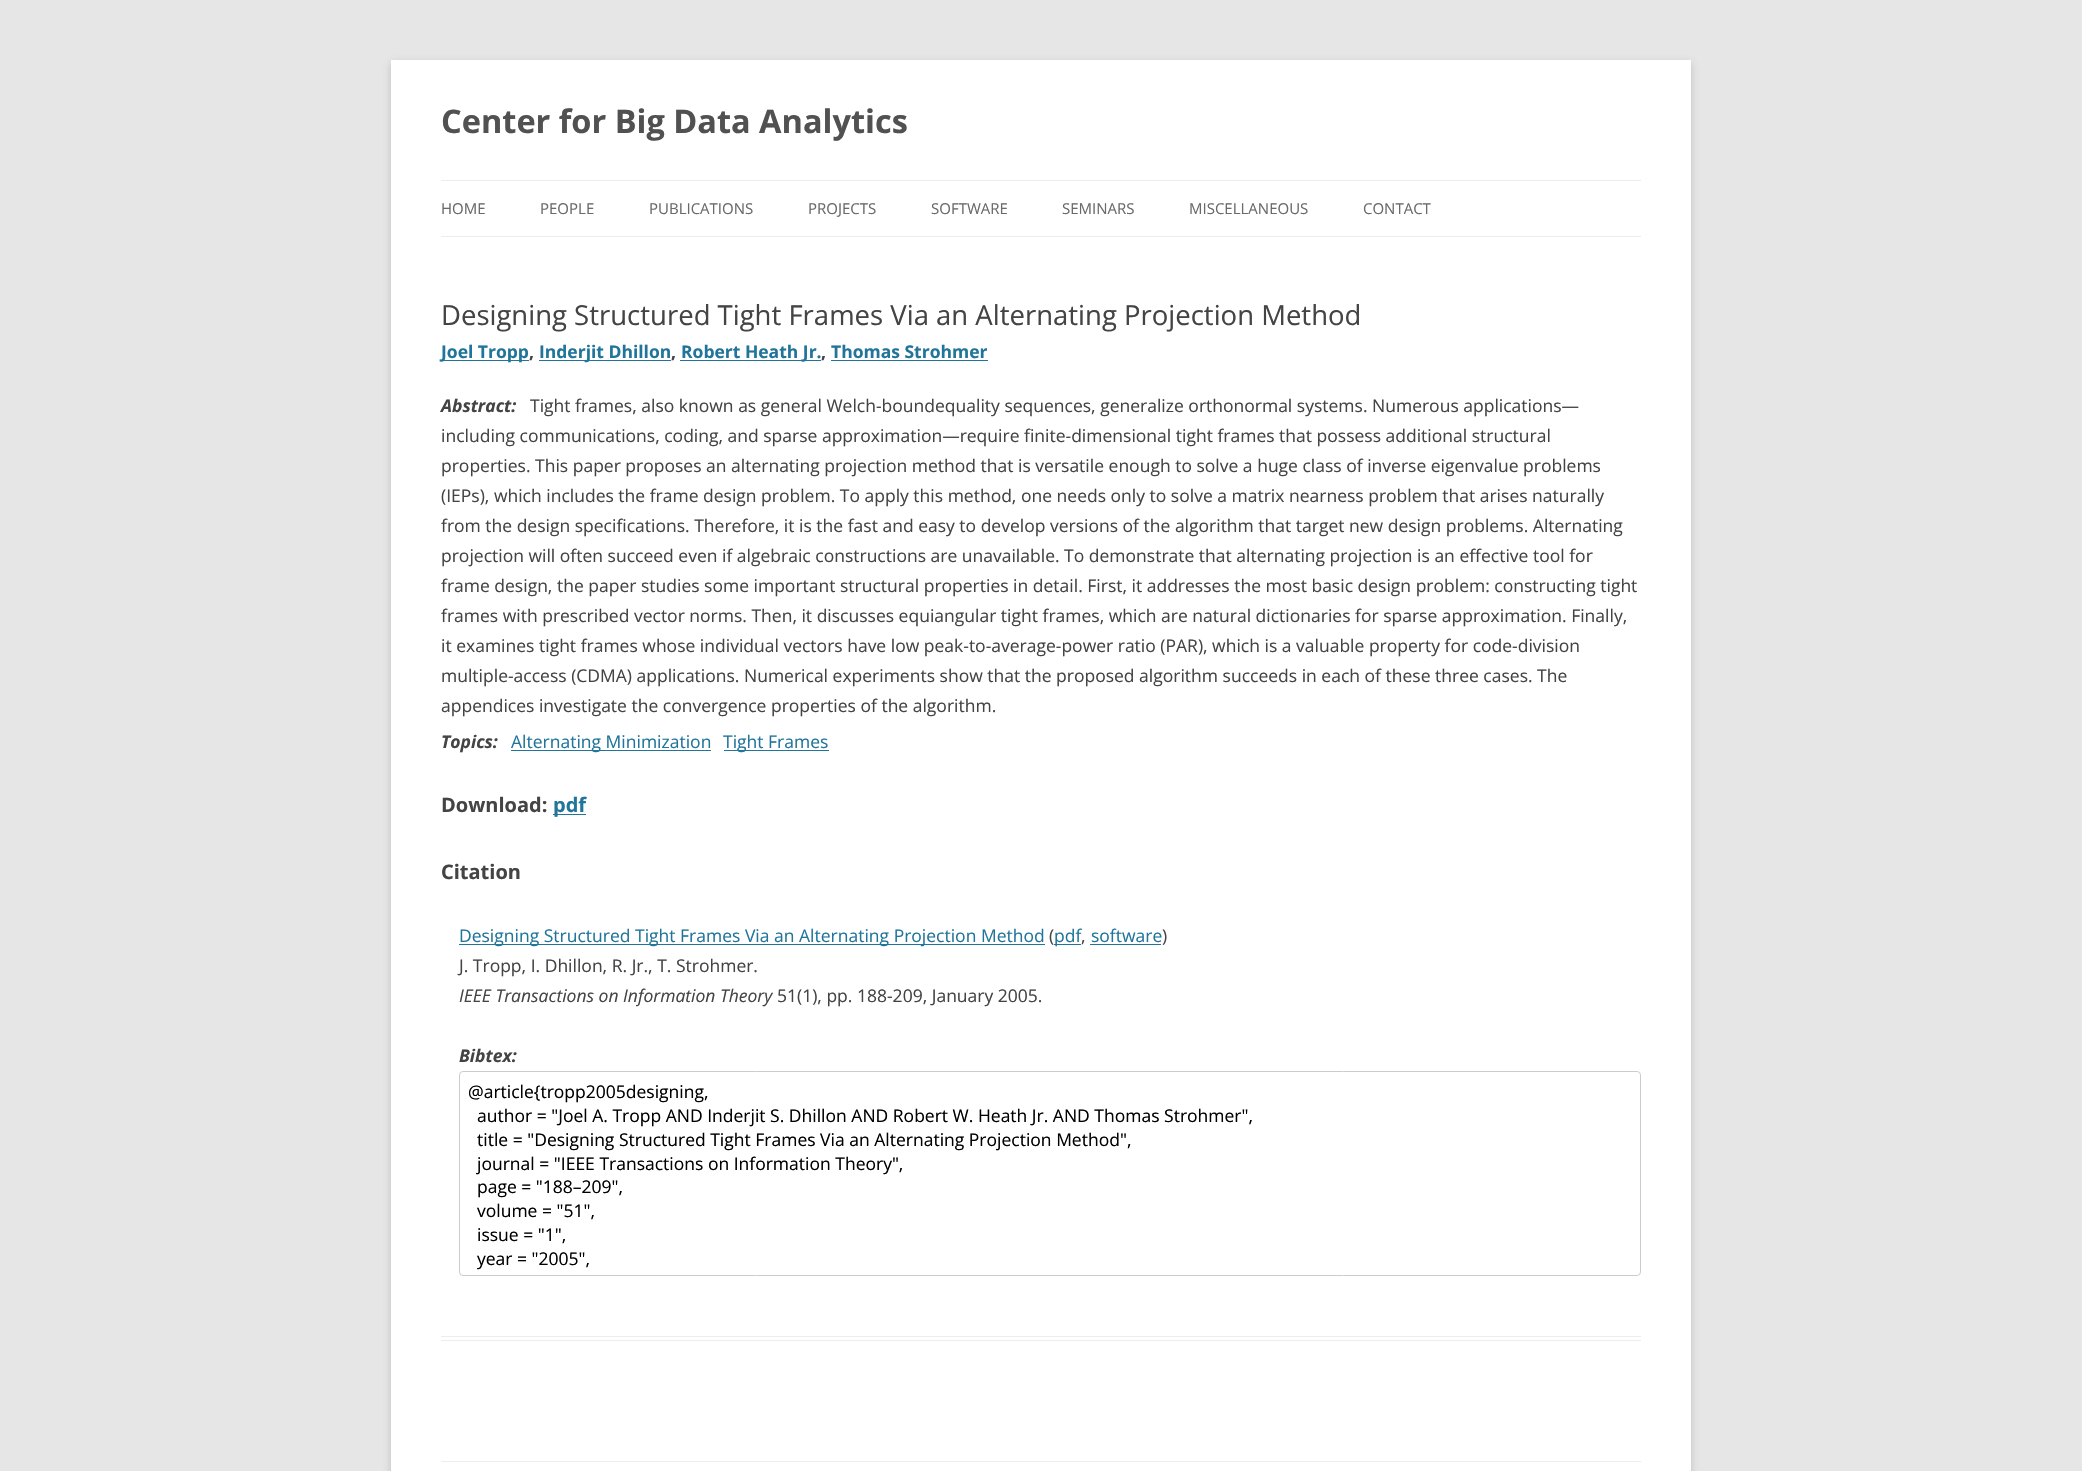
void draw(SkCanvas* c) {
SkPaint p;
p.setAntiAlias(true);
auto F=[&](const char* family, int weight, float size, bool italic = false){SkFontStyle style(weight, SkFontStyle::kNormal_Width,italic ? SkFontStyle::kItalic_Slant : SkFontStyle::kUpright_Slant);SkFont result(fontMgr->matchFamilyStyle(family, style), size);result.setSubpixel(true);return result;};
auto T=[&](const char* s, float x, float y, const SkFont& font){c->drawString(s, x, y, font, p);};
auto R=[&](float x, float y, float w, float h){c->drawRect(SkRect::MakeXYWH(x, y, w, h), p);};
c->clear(0xffe6e6e6);
p.setColor(0x4d646464);
p.setMaskFilter(SkMaskFilter::MakeBlur(kNormal_SkBlurStyle, 4));
c->drawRect(SkRect::MakeXYWH(391,63,1300,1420),p);
p.setMaskFilter(nullptr);
p.setColor(0xffffffff);
R(391,60,1300,1411);
auto f1 = F("Open Sans",700,32.5);
p.setColor(0xff515151);
T("Center for Big Data Analytics",441,133,f1);
p.setColor(0xffededed);
R(441,180,1200,1);
R(441,236,1200,1);
auto f2 = F("Open Sans",400,15);
p.setColor(0xff6a6a6a);
T("HOME",441,214,f2);
T("PEOPLE",540,214,f2);
T("PUBLICATIONS",649,214,f2);
T("PROJECTS",808,214,f2);
T("SOFTWARE",931,214,f2);
T("SEMINARS",1062,214,f2);
T("MISCELLANEOUS",1189,214,f2);
T("CONTACT",1363,214,f2);
p.setColor(0xffededed);
R(441,1336,1200,1);
R(441,1340,1200,1);
auto f3 = F("Open Sans",400,27.5);
p.setColor(0xff444444);
T("Designing Structured Tight Frames Via an Alternating Projection Method",441,325,f3);
p.setColor(0xff21759b);
R(441,360,88,1);
auto f4 = F("Open Sans",700,17.5);
T("Joel Tropp",441,358,f4);
p.setColor(0xff444444);
T(",",529,358,f4);
p.setColor(0xff21759b);
R(539,360,132,1);
T("Inderjit Dhillon",539,358,f4);
p.setColor(0xff444444);
T(",",671,358,f4);
p.setColor(0xff21759b);
R(680,360,141,1);
T("Robert Heath Jr.",681,358,f4);
p.setColor(0xff444444);
T(",",821,358,f4);
p.setColor(0xff21759b);
T("Thomas Strohmer",831,358,f4);
R(831,360,157,1);
auto f5 = F("Open Sans",700,17.5,true);
p.setColor(0xff444444);
T("Abstract:",441,412,f5);
auto f6 = F("Open Sans",400,17.5);
T("Tight frames, also known as general Welch-boundequality sequences, generalize orthonormal systems. Numerous applications—",530,412,f6);
T("including communications, coding, and sparse approximation—require finite-dimensional tight frames that possess additional structural",441,442,f6);
T("properties. This paper proposes an alternating projection method that is versatile enough to solve a huge class of inverse eigenvalue problems",441,472,f6);
T("(IEPs), which includes the frame design problem. To apply this method, one needs only to solve a matrix nearness problem that arises naturally",441,502,f6);
T("from the design specifications. Therefore, it is the fast and easy to develop versions of the algorithm that target new design problems. Alternating",441,532,f6);
T("projection will often succeed even if algebraic constructions are unavailable. To demonstrate that alternating projection is an effective tool for",441,562,f6);
T("frame design, the paper studies some important structural properties in detail. First, it addresses the most basic design problem: constructing tight",441,592,f6);
T("frames with prescribed vector norms. Then, it discusses equiangular tight frames, which are natural dictionaries for sparse approximation. Finally,",441,622,f6);
T("it examines tight frames whose individual vectors have low peak-to-average-power ratio (PAR), which is a valuable property for code-division",441,652,f6);
T("multiple-access (CDMA) applications. Numerical experiments show that the proposed algorithm succeeds in each of these three cases. The",441,682,f6);
T("appendices investigate the convergence properties of the algorithm.",441,712,f6);
T("Topics:",441,748,f5);
p.setColor(0xff21759b);
R(511,750,200,1);
T("Alternating Minimization",511,748,f6);
R(724,750,105,1);
T("Tight Frames",723,748,f6);
auto f7 = F("Open Sans",700,20);
p.setColor(0xff444444);
T("Download:",441,812,f7);
p.setColor(0xff21759b);
R(553,814,33,1);
T("pdf",553,812,f7);
p.setColor(0xff444444);
T("Citation",441,879,f7);
p.setColor(0xff21759b);
R(459,944,586,1);
T("Designing Structured Tight Frames Via an Alternating Projection Method",459,942,f6);
p.setColor(0xff444444);
T("(",1049,942,f6);
p.setColor(0xff21759b);
R(1054,944,27,1);
T("pdf",1054,942,f6);
p.setColor(0xff444444);
T(",",1081,942,f6);
p.setColor(0xff21759b);
T("software",1091,942,f6);
R(1090,944,71,1);
p.setColor(0xff444444);
T(")",1162,942,f6);
T("J. Tropp, I. Dhillon, R. Jr., T. Strohmer.",459,972,f6);
auto f8 = F("Open Sans",400,17.5,true);
T("IEEE Transactions on Information Theory",459,1002,f8);
T("51(1), pp. 188-209, January 2005.",777,1002,f6);
T("Bibtex:",459,1062,f5);
p.setStroke(true);
p.setStrokeWidth(1);
p.setColor(0xffcccccc);
c->drawRoundRect(SkRect::MakeXYWH(459.5,1071.5,1181,204),3.5,3.5,p);
p.setStroke(false);
p.setColor(0xff000000);
T("@article{tropp2005designing,",468,1098,f6);
T("author = \"Joel A. Tropp AND Inderjit S. Dhillon AND Robert W. Heath Jr. AND Thomas Strohmer\",",477,1122,f6);
T("title = \"Designing Structured Tight Frames Via an Alternating Projection Method\",",477,1146,f6);
T("journal = \"IEEE Transactions on Information Theory\",",477,1170,f6);
T("page = \"188–209\",",477,1193,f6);
T("volume = \"51\",",477,1217,f6);
T("issue = \"1\",",477,1241,f6);
T("year = \"2005\",",477,1265,f6);
p.setColor(0xffededed);
R(441,1461,1200,1);
}
